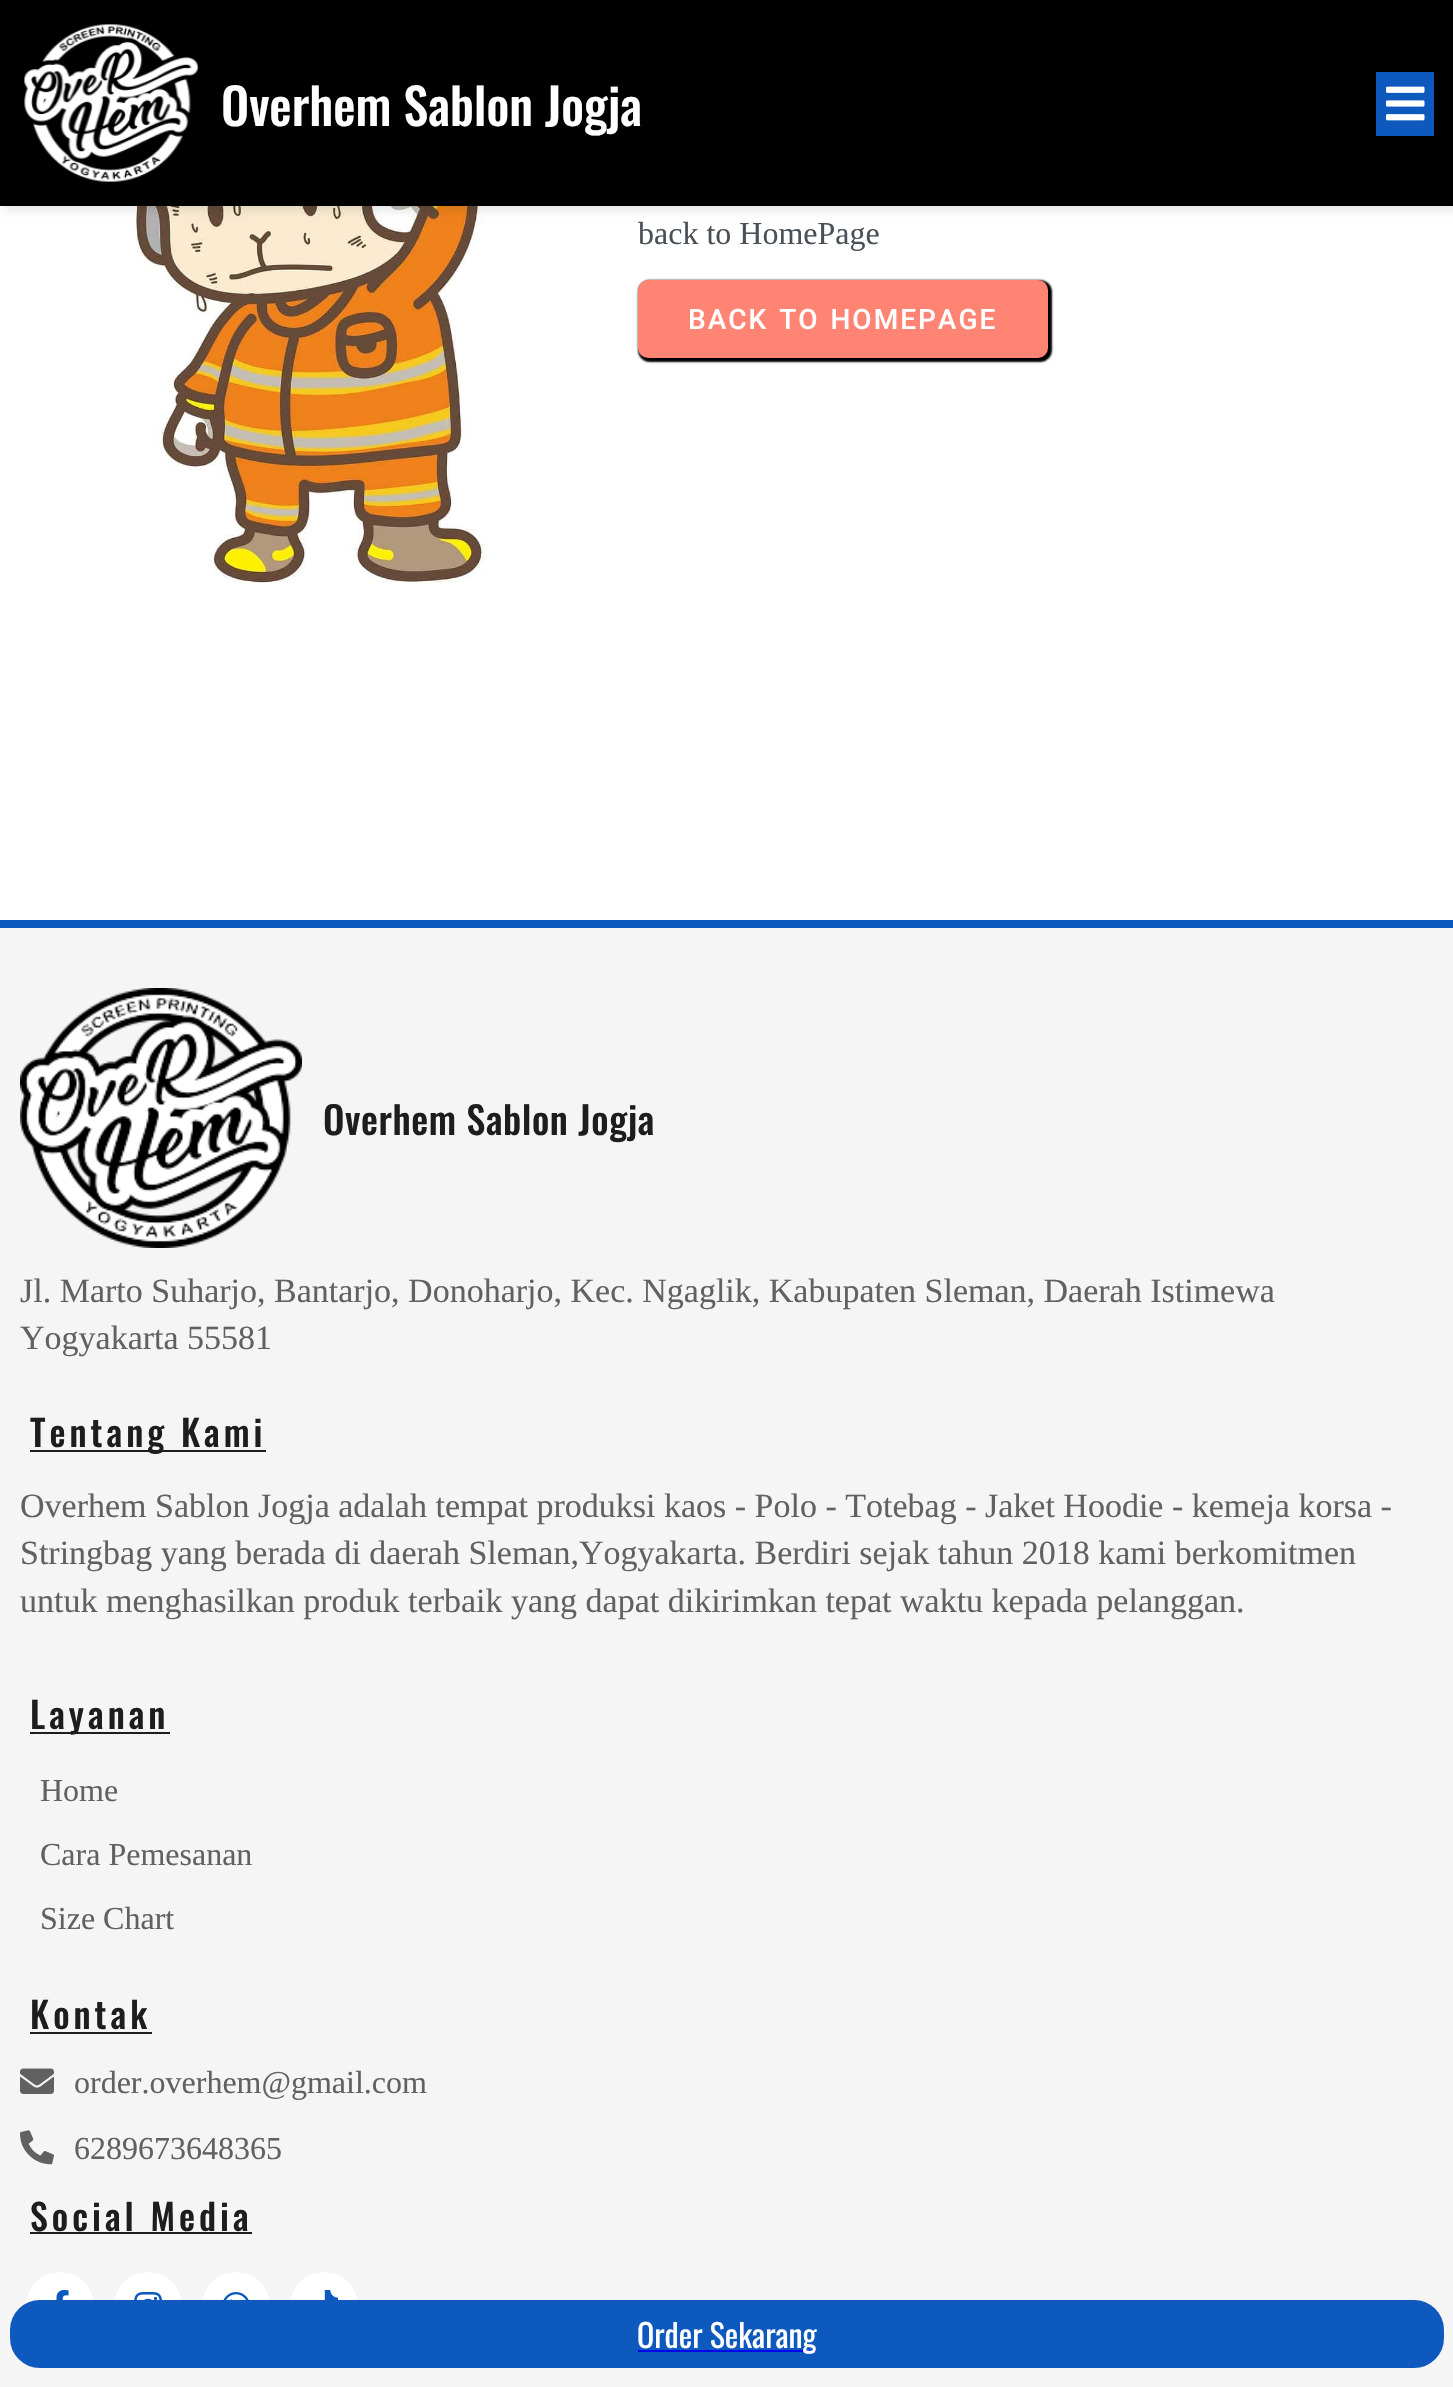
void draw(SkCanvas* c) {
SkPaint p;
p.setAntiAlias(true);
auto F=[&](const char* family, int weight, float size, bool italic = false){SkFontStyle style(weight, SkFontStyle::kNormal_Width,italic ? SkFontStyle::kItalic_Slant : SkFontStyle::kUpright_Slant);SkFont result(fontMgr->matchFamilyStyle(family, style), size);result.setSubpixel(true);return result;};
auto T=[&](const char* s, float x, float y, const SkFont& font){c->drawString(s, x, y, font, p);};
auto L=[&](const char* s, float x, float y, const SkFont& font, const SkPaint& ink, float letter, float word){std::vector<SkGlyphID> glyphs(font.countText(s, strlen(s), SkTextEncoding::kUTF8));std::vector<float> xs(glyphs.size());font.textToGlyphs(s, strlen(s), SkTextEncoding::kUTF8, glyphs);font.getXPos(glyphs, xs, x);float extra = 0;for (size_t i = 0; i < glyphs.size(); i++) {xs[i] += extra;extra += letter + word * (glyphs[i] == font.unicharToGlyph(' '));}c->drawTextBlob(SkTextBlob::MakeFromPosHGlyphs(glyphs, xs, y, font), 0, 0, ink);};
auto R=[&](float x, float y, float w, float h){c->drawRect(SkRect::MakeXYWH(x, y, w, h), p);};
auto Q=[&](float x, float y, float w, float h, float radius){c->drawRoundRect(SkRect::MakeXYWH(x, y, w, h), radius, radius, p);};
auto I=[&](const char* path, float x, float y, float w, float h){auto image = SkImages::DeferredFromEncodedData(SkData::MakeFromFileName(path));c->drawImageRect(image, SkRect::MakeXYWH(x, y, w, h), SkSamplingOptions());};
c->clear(0xffffffff);
I("3.png",78,206,412,377);
p.setColor(0x1a000000);
p.setMaskFilter(SkMaskFilter::MakeBlur(kNormal_SkBlurStyle, 5));
c->drawRect(SkRect::MakeXYWH(4,4,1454,206),p);
p.setMaskFilter(nullptr);
p.setColor(0xff000000);
R(0,0,1453,206);
I("1.png",23,24,176,158);
auto f1 = F("Oswald",500,50);
p.setColor(0xffffffff);
T("Overhem Sablon Jogja",221,126,f1);
p.setColor(0xff0e59bd);
R(1376,72,58,64);
I("2.png",1386,86,39,35);
auto f2 = F("Liberation Serif",400,32);
p.setColor(0xff495057);
T("back to HomePage",638,244,f2);
p.setColor(0xff000000);
p.setMaskFilter(SkMaskFilter::MakeBlur(kNormal_SkBlurStyle, 1));
c->drawRoundRect(SkRect::MakeXYWH(638,280,414,82),12,12,p);
p.setMaskFilter(nullptr);
p.setColor(0xffff8474);
Q(638,280,410,78,10);
auto f3 = F("Roboto",500,28);
p.setColor(0xffffffff);
L("BACK TO HOMEPAGE",688,329,f3,p,2,2);
p.setColor(0xfff5f5f5);
R(0,928,1453,1459);
p.setColor(0xff0e59bd);
R(0,920,1453,8);
I("4.png",20,988,282,260);
auto f4 = F("Oswald",500,38);
p.setColor(0xff1d1d1d);
L("Overhem Sablon Jogja",323,1135,f4,p,.6,0);
auto f5 = F("Liberation Serif",400,34);
p.setColor(0xff616161);
T("Jl. Marto Suharjo, Bantarjo, Donoharjo, Kec. Ngaglik, Kabupaten Sleman, Daerah Istimewa",20,1302,f5);
T("Yogyakarta 55581",20,1349,f5);
p.setColor(0xff1d1d1d);
R(30,1450,236,2);
auto f6 = F("Oswald",500,36);
L("Tentang Kami",30,1447,f6,p,4,0);
p.setColor(0xff616161);
T("Overhem Sablon Jogja adalah tempat produksi kaos - Polo - Totebag - Jaket Hoodie - kemeja korsa -",20,1517,f5);
T("Stringbag yang berada di daerah Sleman,Yogyakarta. Berdiri sejak tahun 2018 kami berkomitmen",20,1564,f5);
T("untuk menghasilkan produk terbaik yang dapat dikirimkan tepat waktu kepada pelanggan.",20,1612,f5);
p.setColor(0xff1d1d1d);
R(30,1732,140,2);
L("Layanan",30,1729,f6,p,4,0);
p.setColor(0xff616161);
T("Home",40,1801,f2);
T("Cara Pemesanan",40,1865,f2);
T("Size Chart",40,1929,f2);
p.setColor(0xff1d1d1d);
L("Kontak",30,2029,f6,p,4,0);
R(30,2032,122,2);
I("5.png",20,2068,34,26);
p.setColor(0xff616161);
T("order.overhem@gmail.com",74,2093,f2);
I("6.png",20,2130,34,35);
T("6289673648365",74,2159,f2);
p.setColor(0xff1d1d1d);
L("Social Media",30,2231,f6,p,4,0);
R(30,2232,222,2);
p.setColor(0xffffffff);
c->drawCircle(60,2306,34,p);
I("7.png",56,2290,13,10);
c->drawCircle(148,2306,34,p);
I("8.png",134,2292,28,8);
c->drawCircle(236,2306,34,p);
I("9.png",223,2292,26,8);
c->drawCircle(324,2306,34,p);
I("10.png",324,2290,14,10);
p.setColor(0xff0e59bd);
c->drawRoundRect(SkRect::MakeXYWH(11,2301,1432,66),29,29,p);
p.setStroke(true);
p.setStrokeWidth(2);
c->drawRoundRect(SkRect::MakeXYWH(11,2301,1432,66),29,29,p);
p.setStroke(false);
p.setColor(0xff0000ee);
R(638,2350,178,2);
auto f7 = F("Oswald",400,32);
p.setColor(0xffffffff);
T("Order Sekarang",637,2348,f7);
}
